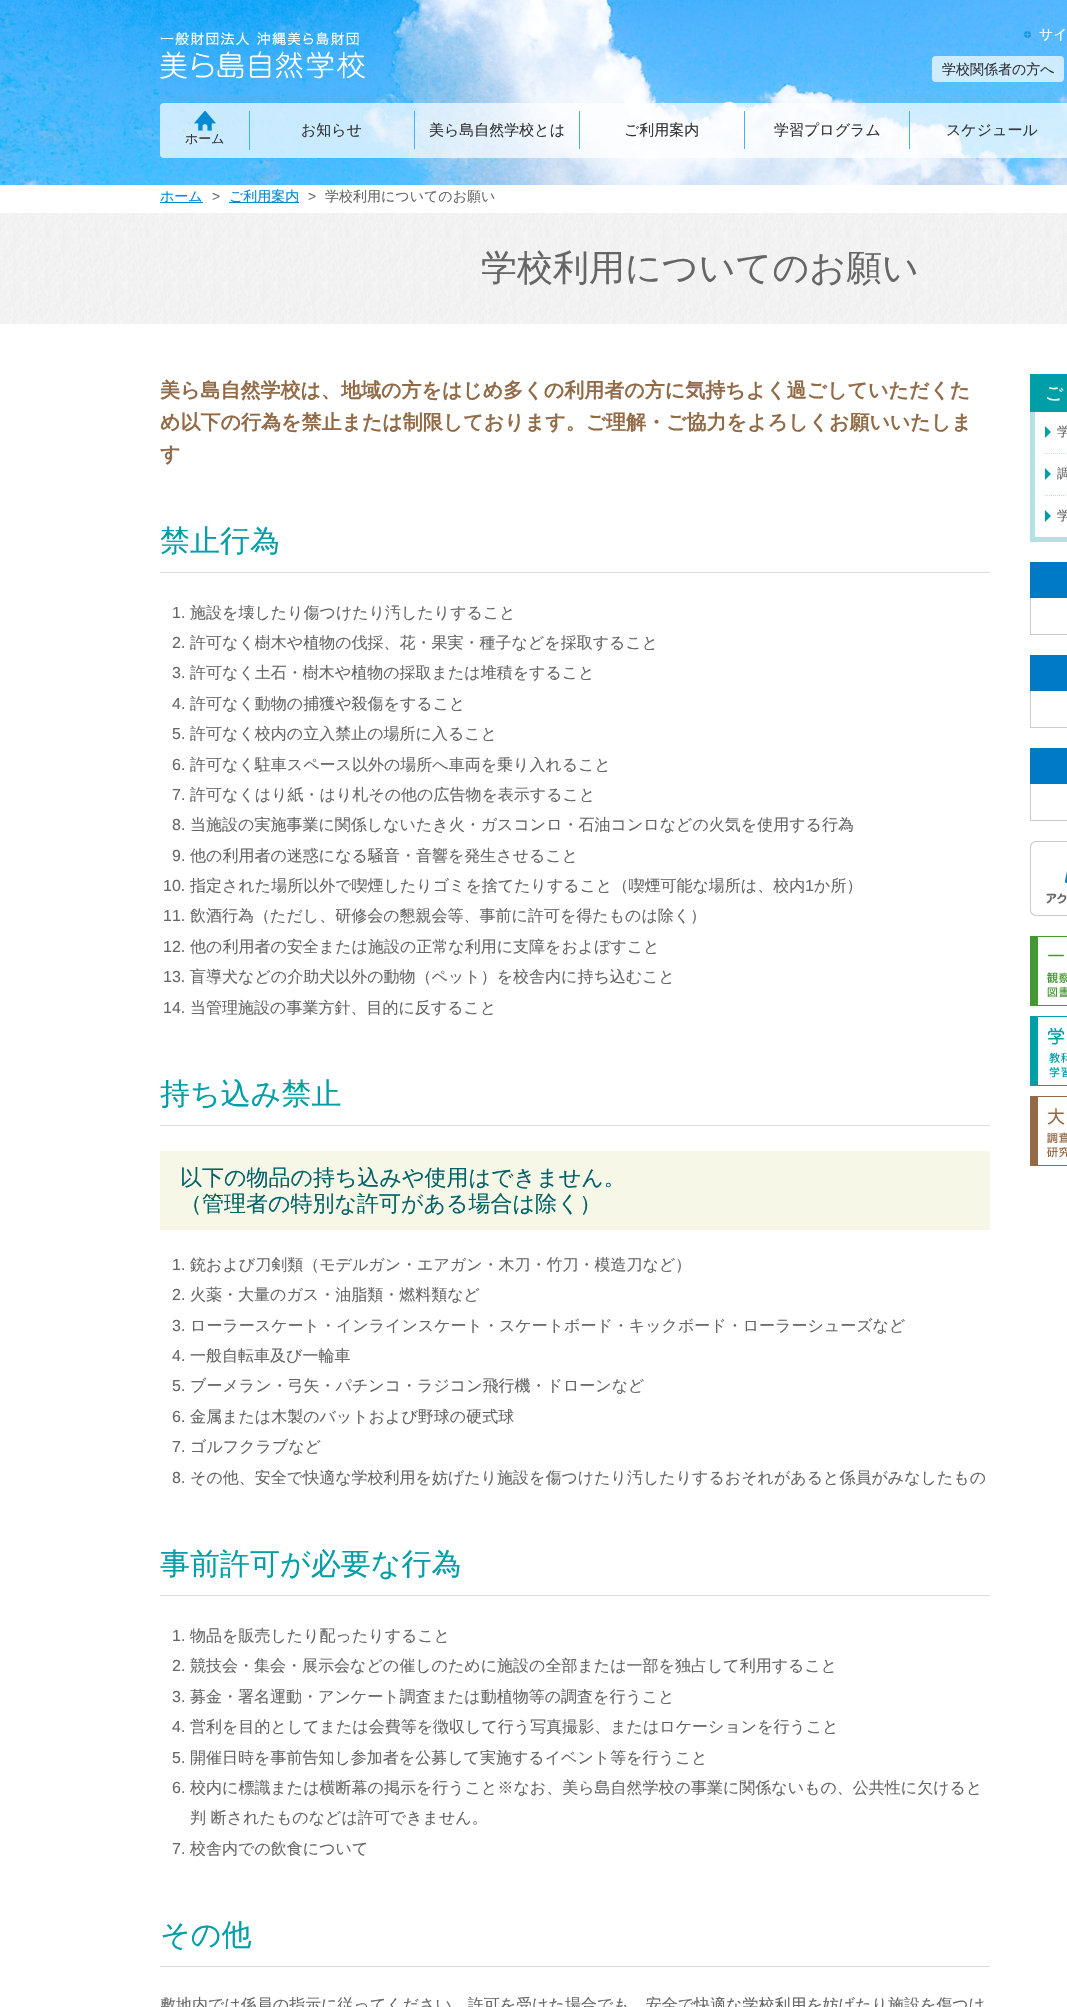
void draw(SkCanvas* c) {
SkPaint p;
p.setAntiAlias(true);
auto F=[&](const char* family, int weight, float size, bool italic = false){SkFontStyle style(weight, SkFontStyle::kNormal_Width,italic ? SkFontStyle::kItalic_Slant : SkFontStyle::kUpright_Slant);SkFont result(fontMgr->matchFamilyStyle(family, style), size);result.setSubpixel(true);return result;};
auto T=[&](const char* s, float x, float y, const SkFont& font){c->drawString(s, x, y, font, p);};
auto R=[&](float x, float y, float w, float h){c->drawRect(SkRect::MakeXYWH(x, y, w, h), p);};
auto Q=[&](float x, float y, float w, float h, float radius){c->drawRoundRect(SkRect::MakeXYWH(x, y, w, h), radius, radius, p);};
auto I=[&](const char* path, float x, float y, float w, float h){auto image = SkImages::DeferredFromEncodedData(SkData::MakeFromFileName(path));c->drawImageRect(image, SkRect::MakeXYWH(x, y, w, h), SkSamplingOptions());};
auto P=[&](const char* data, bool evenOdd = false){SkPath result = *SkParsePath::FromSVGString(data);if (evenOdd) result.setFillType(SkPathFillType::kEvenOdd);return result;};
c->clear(0xffffffff);
I("1.png",0,0,1067,185);
I("2.png",160,32,205,47);
I("3.png",1024,31,7,7);
auto f1 = F("WenQuanYi Zen Hei",500,14);
p.setColor(0xffffffff);
T("サイ",1039,39,f1);
p.setColor(0xb3ffffff);
Q(932,56,132,26,4);
p.setColor(0xff333333);
T("学校関係者の方へ",942,74,f1);
p.setColor(0xb3ffffff);
Q(160,103,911,55,4);
p.setColor(0xff42b0fd);
R(414,111,1,38);
auto f2 = F("WenQuanYi Zen Hei",500,15);
p.setColor(0xff333333);
T("お知らせ",301,135,f2);
p.setColor(0xff42b0fd);
R(579,111,1,38);
p.setColor(0xff333333);
T("美ら島自然学校とは",429,135,f2);
p.setColor(0xff42b0fd);
R(744,111,1,38);
p.setColor(0xff333333);
T("ご利用案内",624,135,f2);
p.setColor(0xff42b0fd);
R(909,111,1,38);
p.setColor(0xff333333);
T("学習プログラム",774,135,f2);
T("スケジュール",946,135,f2);
I("4.png",194,111,22,20);
p.setColor(0xff42b0fd);
R(249,111,1,39);
auto f3 = F("WenQuanYi Zen Hei",500,13);
p.setColor(0xff333333);
T("ホーム",185,143,f3);
p.setColor(0xff008ad2);
R(160,202,43,1);
T("ホーム",160,201,f1);
auto f4 = F("Liberation Sans",400,14);
p.setColor(0xff666666);
T(">",212,201,f4);
p.setColor(0xff008ad2);
R(229,202,70,1);
T("ご利用案内",229,201,f1);
p.setColor(0xff666666);
T(">",308,201,f4);
T("学校利用についてのお願い",325,201,f1);
I("5.png",0,213,1067,111);
auto f5 = F("WenQuanYi Zen Hei",500,36);
T("学校利用についてのお願い",481,280,f5);
auto f6 = F("WenQuanYi Zen Hei",700,20);
p.setColor(0xff926a46);
T("美ら島自然学校は、地域の方をはじめ多くの利用者の方に気持ちよく過ごしていただくた",160,397,f6);
T("め以下の行為を禁止または制限しております。ご理解・ご協力をよろしくお願いいたしま",160,429,f6);
T("す",160,461,f6);
p.setColor(0xffdddddd);
R(160,572,830,1);
auto f7 = F("WenQuanYi Zen Hei",500,30);
p.setColor(0xff009fa7);
T("禁止行為",160,551,f7);
auto f8 = F("Liberation Sans",400,16);
p.setColor(0xff666666);
T("1.",172,618,f8);
auto f9 = F("WenQuanYi Zen Hei",500,16);
T("施設を壊したり傷つけたり汚したりすること",190,618,f9);
T("2.",172,648,f8);
T("許可なく樹木や植物の伐採、花・果実・種子などを採取すること",190,648,f9);
T("3.",172,678,f8);
T("許可なく土石・樹木や植物の採取または堆積をすること",190,678,f9);
T("4.",172,709,f8);
T("許可なく動物の捕獲や殺傷をすること",190,709,f9);
T("5.",172,739,f8);
T("許可なく校内の立入禁止の場所に入ること",190,739,f9);
T("6.",172,770,f8);
T("許可なく駐車スペース以外の場所へ車両を乗り入れること",190,770,f9);
T("7.",172,800,f8);
T("許可なくはり紙・はり札その他の広告物を表示すること",190,800,f9);
T("8.",172,830,f8);
T("当施設の実施事業に関係しないたき火・ガスコンロ・石油コンロなどの火気を使用する行為",190,830,f9);
T("9.",172,861,f8);
T("他の利用者の迷惑になる騒音・音響を発生させること",190,861,f9);
T("10.",163,891,f8);
T("指定された場所以外で喫煙したりゴミを捨てたりすること（喫煙可能な場所は、校内",190,891,f9);
T("1",805,891,f8);
T("か所）",814,891,f9);
T("11.",163,921,f8);
T("飲酒行為（ただし、研修会の懇親会等、事前に許可を得たものは除く）",190,921,f9);
T("12.",163,952,f8);
T("他の利用者の安全または施設の正常な利用に支障をおよぼすこと",190,952,f9);
T("13.",163,982,f8);
T("盲導犬などの介助犬以外の動物（ペット）を校舎内に持ち込むこと",190,982,f9);
T("14.",163,1013,f8);
T("当管理施設の事業方針、目的に反すること",190,1013,f9);
p.setColor(0xffdddddd);
R(160,1125,830,1);
p.setColor(0xff009fa7);
T("持ち込み禁止",160,1104,f7);
p.setColor(0xfff7f7e8);
R(160,1151,830,79);
auto f10 = F("WenQuanYi Zen Hei",500,22);
p.setColor(0xff006166);
T("以下の物品の持ち込みや使用はできません。",180,1185,f10);
T("（管理者の特別な許可がある場合は除く）",180,1211,f10);
p.setColor(0xff666666);
T("1.",172,1270,f8);
T("銃および刀剣類（モデルガン・エアガン・木刀・竹刀・模造刀など）",190,1270,f9);
T("2.",172,1300,f8);
T("火薬・大量のガス・油脂類・燃料類など",190,1300,f9);
T("3.",172,1331,f8);
T("ローラースケート・インラインスケート・スケートボード・キックボード・ローラーシューズなど",190,1331,f9);
T("4.",172,1361,f8);
T("一般自転車及び一輪車",190,1361,f9);
T("5.",172,1391,f8);
T("ブーメラン・弓矢・パチンコ・ラジコン飛行機・ドローンなど",190,1391,f9);
T("6.",172,1422,f8);
T("金属または木製のバットおよび野球の硬式球",190,1422,f9);
T("7.",172,1452,f8);
T("ゴルフクラブなど",190,1452,f9);
T("8.",172,1483,f8);
T("その他、安全で快適な学校利用を妨げたり施設を傷つけたり汚したりするおそれがあると係員がみなしたもの",190,1483,f9);
p.setColor(0xffdddddd);
R(160,1595,830,1);
p.setColor(0xff009fa7);
T("事前許可が必要な行為",160,1574,f7);
p.setColor(0xff666666);
T("1.",172,1641,f8);
T("物品を販売したり配ったりすること",190,1641,f9);
T("2.",172,1671,f8);
T("競技会・集会・展示会などの催しのために施設の全部または一部を独占して利用すること",190,1671,f9);
T("3.",172,1702,f8);
T("募金・署名運動・アンケート調査または動植物等の調査を行うこと",190,1702,f9);
T("4.",172,1732,f8);
T("営利を目的としてまたは会費等を徴収して行う写真撮影、またはロケーションを行うこと",190,1732,f9);
T("5.",172,1763,f8);
T("開催日時を事前告知し参加者を公募して実施するイベント等を行うこと",190,1763,f9);
T("6.",172,1793,f8);
T("校内に標識または横断幕の掲示を行うこと※なお、美ら島自然学校の事業に関係ないもの、公共性に欠けると",190,1793,f9);
T("判 断されたものなどは許可できません。",190,1823,f9);
T("7.",172,1854,f8);
T("校舎内での飲食について",190,1854,f9);
p.setColor(0xffdddddd);
R(160,1966,830,1);
p.setColor(0xff009fa7);
T("その他",160,1945,f7);
p.setColor(0xff666666);
T("敷地内では係員の指示に従ってください。許可を受けた場合でも、安全で快適な学校利用を妨げたり施設を傷つけ",160,2010,f9);
p.setColor(0xff009fa8);
R(1030,374,37,38);
auto f11 = F("WenQuanYi Zen Hei",500,18);
p.setColor(0xffffffff);
T("ご",1045,399,f11);
p.setColor(0xffb2e2e5);
R(1030,537,37,5);
R(1030,412,5,130);
p.setColor(0xff009fa8);
c->drawPath(P("M1045 438v-12l6 6z"),p);
p.setColor(0xff666666);
T("学",1057,436,f3);
p.setStroke(true);
p.setStrokeWidth(1);
p.setColor(0xffb2e2e5);
p.setPathEffect(SkDashPathEffect::Make({{1,1}}, 0));
c->drawPath(P("M1045 453.5h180m-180 42h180"),p);
p.setPathEffect(nullptr);
p.setStroke(false);
p.setColor(0xff009fa8);
c->drawPath(P("M1045 480v-12l6 6z"),p);
p.setColor(0xff666666);
T("調",1057,478,f3);
p.setColor(0xff009fa8);
c->drawPath(P("M1045 522v-12l6 6z"),p);
p.setColor(0xff666666);
T("学",1057,520,f3);
p.setColor(0xff007ac5);
R(1030,562,37,36);
p.setColor(0xffcccccc);
R(1030,634,37,1);
R(1030,598,1,37);
p.setColor(0xff007ac5);
R(1030,655,37,36);
p.setColor(0xffcccccc);
R(1030,727,37,1);
R(1030,691,1,37);
p.setColor(0xff007ac5);
R(1030,748,37,36);
p.setColor(0xffcccccc);
R(1030,820,37,1);
R(1030,784,1,37);
I("6.png",1030,841,37,75);
I("7.png",1030,936,37,70);
I("8.png",1030,1016,37,70);
I("9.png",1030,1096,37,70);
}
